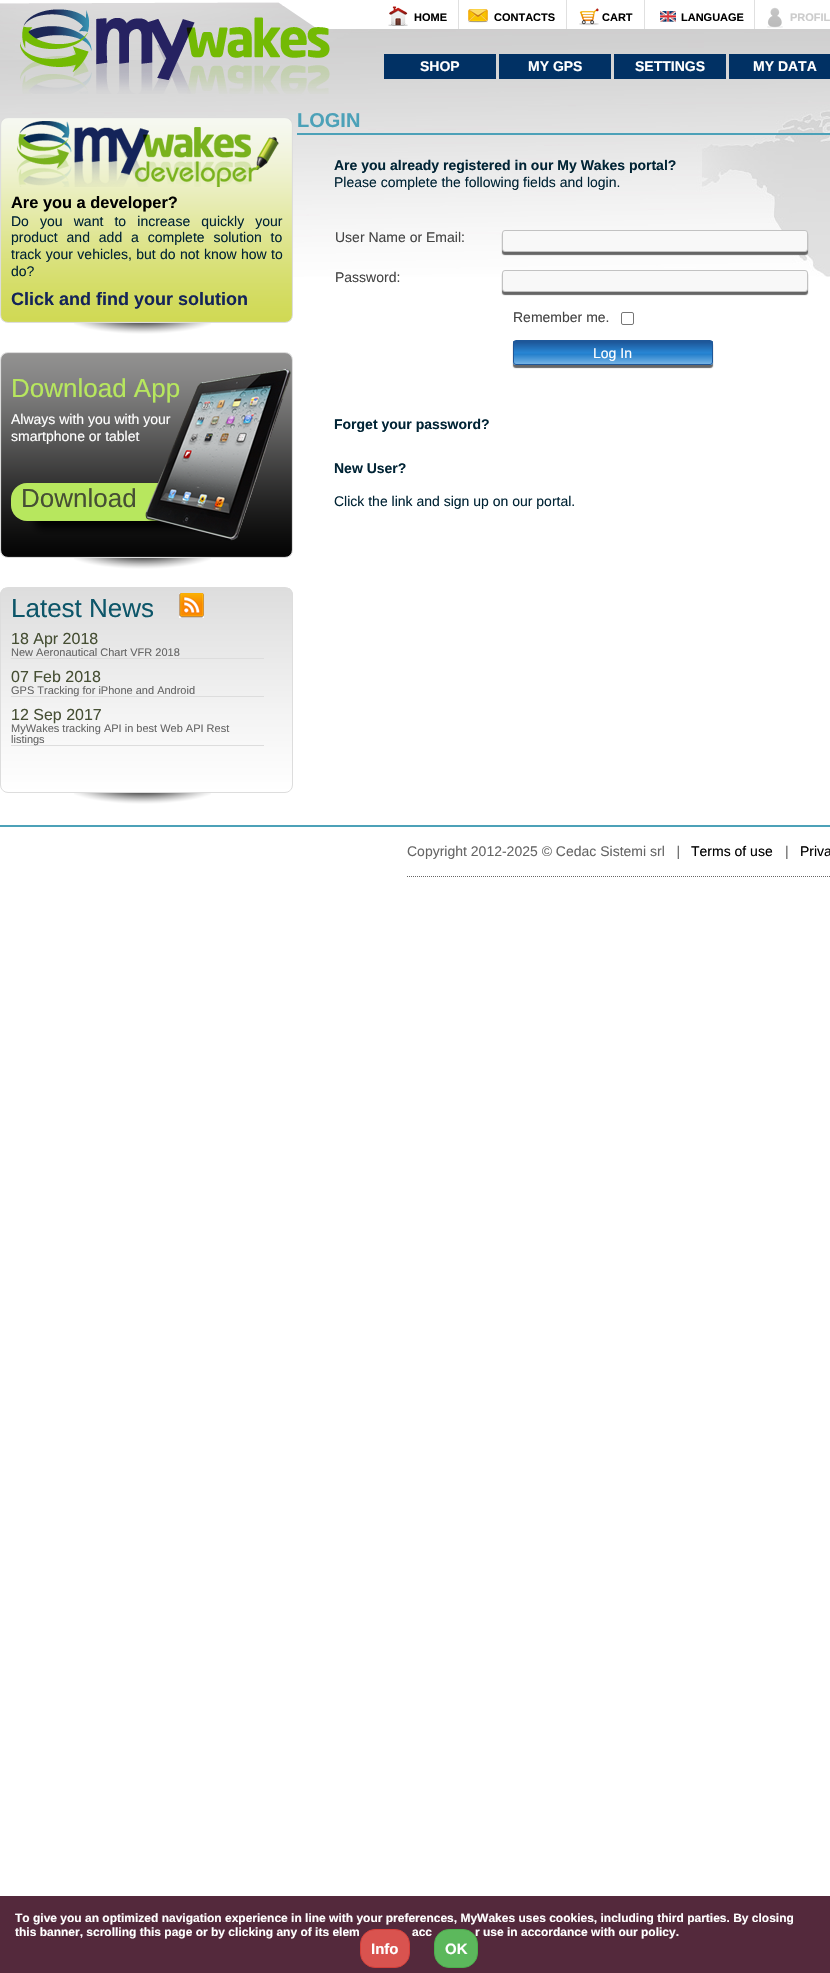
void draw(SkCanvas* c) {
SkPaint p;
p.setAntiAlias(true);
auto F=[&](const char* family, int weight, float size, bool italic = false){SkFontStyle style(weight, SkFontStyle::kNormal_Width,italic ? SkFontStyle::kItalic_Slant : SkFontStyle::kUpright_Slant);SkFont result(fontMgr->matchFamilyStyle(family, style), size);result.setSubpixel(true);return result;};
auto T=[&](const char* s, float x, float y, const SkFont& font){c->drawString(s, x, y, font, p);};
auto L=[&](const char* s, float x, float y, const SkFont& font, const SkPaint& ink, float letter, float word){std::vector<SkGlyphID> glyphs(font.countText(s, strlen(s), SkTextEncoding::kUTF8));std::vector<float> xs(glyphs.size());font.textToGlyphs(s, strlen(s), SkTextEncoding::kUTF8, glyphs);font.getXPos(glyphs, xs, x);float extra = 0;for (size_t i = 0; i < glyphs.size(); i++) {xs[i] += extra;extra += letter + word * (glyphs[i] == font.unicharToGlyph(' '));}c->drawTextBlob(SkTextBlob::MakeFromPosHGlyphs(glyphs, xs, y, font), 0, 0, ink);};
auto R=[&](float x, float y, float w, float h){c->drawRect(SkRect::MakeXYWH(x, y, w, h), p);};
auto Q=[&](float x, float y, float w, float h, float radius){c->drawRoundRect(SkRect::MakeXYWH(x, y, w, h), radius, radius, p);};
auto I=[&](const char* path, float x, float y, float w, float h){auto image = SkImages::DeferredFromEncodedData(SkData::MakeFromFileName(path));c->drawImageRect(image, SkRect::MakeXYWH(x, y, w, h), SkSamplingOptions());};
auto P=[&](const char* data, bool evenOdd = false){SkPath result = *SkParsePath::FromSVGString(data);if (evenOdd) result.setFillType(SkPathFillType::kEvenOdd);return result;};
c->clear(0xffffffff);
I("8.png",0,2,830,275);
I("1.png",0,0,830,60);
I("2.png",20,9,310,85);
I("3.png",388,6,20,20);
p.setColor(0xffe0e0e0);
R(458,0,1,29);
auto f1 = F("Liberation Sans",700,11);
p.setColor(0xff000000);
T("HOME",414,21,f1);
I("4.png",468,9,20,14);
p.setColor(0xffe0e0e0);
R(566,0,1,29);
p.setColor(0xff000000);
T("CONTACTS",494,21,f1);
p.setColor(0xffe0e0e0);
R(644,0,1,29);
I("5.png",579,8,20,18);
p.setColor(0xff000000);
T("CART",602,21,f1);
p.setColor(0xffe0e0e0);
R(754,0,1,29);
I("6.png",660,11,16,11);
p.setColor(0xff000000);
T("LANGUAGE",681,21,f1);
I("7.png",767,7,16,21);
p.setColor(0xffcccccc);
T("PROFIL",790,21,f1);
p.setColor(0xff013164);
R(384,54,112,25);
auto f2 = F("Liberation Sans",700,14);
p.setColor(0xffffffff);
T("SHOP",420,71,f2);
p.setColor(0xff013164);
R(499,54,112,25);
p.setColor(0xffffffff);
T("MY GPS",528,71,f2);
p.setColor(0xff013164);
R(614,54,112,25);
p.setColor(0xffffffff);
T("SETTINGS",635,71,f2);
p.setColor(0xff013164);
R(729,54,101,25);
p.setColor(0xffffffff);
T("MY DATA",753,71,f2);
I("9.png",74,323,137,11);
I("10.png",1,118,291,204);
p.setStroke(true);
p.setStrokeWidth(1);
p.setColor(0xffdddddd);
c->drawRoundRect(SkRect::MakeXYWH(.5,117.5,292,205),7.5,7.5,p);
auto f3 = F("Liberation Sans",700,16.4);
p.setStroke(false);
p.setColor(0xff000000);
T("Are you a developer?",11,208,f3);
auto f4 = F("Liberation Sans",400,14);
p.setColor(0xff012435);
L("Do you want to increase quickly your",11,226,f4,p,0,7.25);
L("product and add a complete solution to",11,242,f4,p,0,5);
L("track your vehicles, but do not know how to",11,259,f4,p,0,.5);
T("do?",11,276,f4);
auto f5 = F("Liberation Sans",700,18);
p.setColor(0xff142459);
T("Click and find your solution",11,305,f5);
I("9.png",74,558,137,11);
I("11.png",1,353,291,204);
p.setStroke(true);
p.setColor(0xffdddddd);
c->drawRoundRect(SkRect::MakeXYWH(.5,352.5,292,205),7.5,7.5,p);
auto f6 = F("Liberation Sans",400,26);
p.setStroke(false);
p.setColor(0xffb7e75e);
T("Download App",11,397,f6);
p.setColor(0xffffffff);
T("Always with you with your",11,424,f4);
p.setColor(0xff000000);
p.setMaskFilter(SkMaskFilter::MakeBlur(kNormal_SkBlurStyle, 4));
c->drawRoundRect(SkRect::MakeXYWH(34,506,166,23),8,8,p);
p.setMaskFilter(nullptr);
p.setColor(0xffb7e75e);
Q(11,483,181,38,16);
I("12.png",145,369,146,172);
I("13.png",145,369,146,170);
p.setColor(0xffffffff);
T("smartphone or tablet",11,441,f4);
p.setColor(0xff464f34);
T("Download",21,507,f6);
I("9.png",74,793,137,11);
c->save();
c->clipPath(P("M8 587h277c4.5 0 8 3.5 8 8v190c0 4.5-3.5 8-8 8h-277c-4.5 0-8-3.5-8-8v-190c0-4.5 3.5-8 8-8z"),true);
{
const SkColor colors[] = {0xffdddddd,0xfff4f4f4,0xffffffff};
const float stops[] = {0,.63,1};
const SkPoint ends[] = {{147,588}, {147,792}};
p.setShader(SkGradientShader::MakeLinear(ends, colors, stops, 3, SkTileMode::kClamp));
p.setAlpha(255);
}
R(0,588,293,204);
c->restore();
p.setStroke(true);
p.setShader(nullptr);
p.setColor(0xffdddddd);
c->drawRoundRect(SkRect::MakeXYWH(.5,587.5,292,205),7.5,7.5,p);
p.setStroke(false);
p.setColor(0xff0d5669);
T("Latest News",11,617,f6);
I("14.png",179,593,25,25);
p.setColor(0xffdddddd);
R(11,658,253,1);
auto f7 = F("Liberation Sans",400,16);
p.setColor(0xff464f34);
T("18 Apr 2018",11,644,f7);
auto f8 = F("Liberation Sans",400,11);
p.setColor(0xff666666);
T("New Aeronautical Chart VFR 2018",11,656,f8);
p.setColor(0xffdddddd);
R(11,696,253,1);
p.setColor(0xff464f34);
T("07 Feb 2018",11,682,f7);
p.setColor(0xff666666);
T("GPS Tracking for iPhone and Android",11,694,f8);
p.setColor(0xffdddddd);
R(11,745,253,1);
p.setColor(0xff464f34);
T("12 Sep 2017",11,720,f7);
p.setColor(0xff666666);
T("MyWakes tracking API in best Web API Rest",11,732,f8);
T("listings",11,743,f8);
p.setColor(0xff4ca1b8);
R(297,133,533,2);
auto f9 = F("Liberation Sans",700,20);
T("LOGIN",297,127,f9);
p.setColor(0xff012435);
T("Are you already registered in our My Wakes portal?",334,170,f2);
T("Please complete the following fields and login.",334,187,f4);
p.setColor(0xff444444);
T("User Name or Email:",335,242,f4);
p.setColor(0xff666666);
p.setMaskFilter(SkMaskFilter::MakeBlur(kNormal_SkBlurStyle, .5));
c->drawRoundRect(SkRect::MakeXYWH(502,233,306,22),3,3,p);
p.setMaskFilter(nullptr);
p.setColor(0xfff8f8f8);
c->drawRoundRect(SkRect::MakeXYWH(502.5,230.5,305,21),2.5,2.5,p);
p.setStroke(true);
p.setColor(0xffc2c2c2);
c->drawRoundRect(SkRect::MakeXYWH(502.5,230.5,305,21),2.5,2.5,p);
p.setStroke(false);
p.setColor(0xff444444);
T("Password:",335,282,f4);
p.setColor(0xff666666);
p.setMaskFilter(SkMaskFilter::MakeBlur(kNormal_SkBlurStyle, .5));
c->drawRoundRect(SkRect::MakeXYWH(502,273,306,22),3,3,p);
p.setMaskFilter(nullptr);
p.setColor(0xfff8f8f8);
c->drawRoundRect(SkRect::MakeXYWH(502.5,270.5,305,21),2.5,2.5,p);
p.setStroke(true);
p.setColor(0xffc2c2c2);
c->drawRoundRect(SkRect::MakeXYWH(502.5,270.5,305,21),2.5,2.5,p);
p.setStroke(false);
p.setColor(0xff444444);
T("Remember me.",513,322,f4);
p.setStroke(true);
p.setColor(0xff767676);
c->drawRoundRect(SkRect::MakeXYWH(621.5,312.5,12,12),1.5,1.5,p);
p.setStroke(false);
p.setColor(0xff666666);
p.setMaskFilter(SkMaskFilter::MakeBlur(kNormal_SkBlurStyle, .5));
c->drawRoundRect(SkRect::MakeXYWH(513,343,200,25),3,3,p);
p.setMaskFilter(nullptr);
I("15.png",513,341,200,24);
p.setStroke(true);
p.setColor(0xff1e5799);
c->drawRoundRect(SkRect::MakeXYWH(513.5,340.5,199,24),2.5,2.5,p);
p.setStroke(false);
p.setColor(0xffffffff);
T("Log In",593,358,f4);
p.setColor(0xff012435);
T("Forget your password?",334,429,f2);
T("New User?",334,473,f2);
T("Click the link and sign up on our portal.",334,506,f4);
p.setColor(0xff4ca1b8);
R(0,825,830,2);
p.setStroke(true);
p.setColor(0xff666666);
p.setPathEffect(SkDashPathEffect::Make({{1,1}}, 0));
c->drawPath(P("M407 876.5h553"),p);
p.setPathEffect(nullptr);
p.setStroke(false);
T("Copyright 2012-2025 © Cedac Sistemi srl   |",407,856,f4);
p.setColor(0xff000000);
T("Terms of use",691,856,f4);
p.setColor(0xff666666);
T("|",785,856,f4);
p.setColor(0xff000000);
T("Priva",800,856,f4);
p.setColor(0xff54293c);
R(0,1896,830,77);
auto f10 = F("Liberation Sans",700,12);
p.setColor(0xffffffff);
T("To give you an optimized navigation experience in line with your preferences, MyWakes uses cookies, including third parties. By closing",15,1922,f10);
T("this banner, scrolling this page or by clicking any of its elem",15,1936,f10);
T("acc",412,1936,f10);
T("r use in accordance with our policy.",475,1936,f10);
p.setColor(0xffd9534f);
c->drawRoundRect(SkRect::MakeXYWH(360.5,1929.5,49,38),14.5,14.5,p);
p.setStroke(true);
p.setColor(0xffd43f3a);
c->drawRoundRect(SkRect::MakeXYWH(360.5,1929.5,49,38),14.5,14.5,p);
auto f11 = F("Liberation Sans",700,15);
p.setStroke(false);
p.setColor(0xffffffff);
T("Info",371,1954,f11);
p.setColor(0xff5cb85c);
c->drawRoundRect(SkRect::MakeXYWH(434.5,1929.5,43,38),14.5,14.5,p);
p.setStroke(true);
p.setColor(0xff4cae4c);
c->drawRoundRect(SkRect::MakeXYWH(434.5,1929.5,43,38),14.5,14.5,p);
p.setStroke(false);
p.setColor(0xffffffff);
T("OK",445,1954,f11);
}
